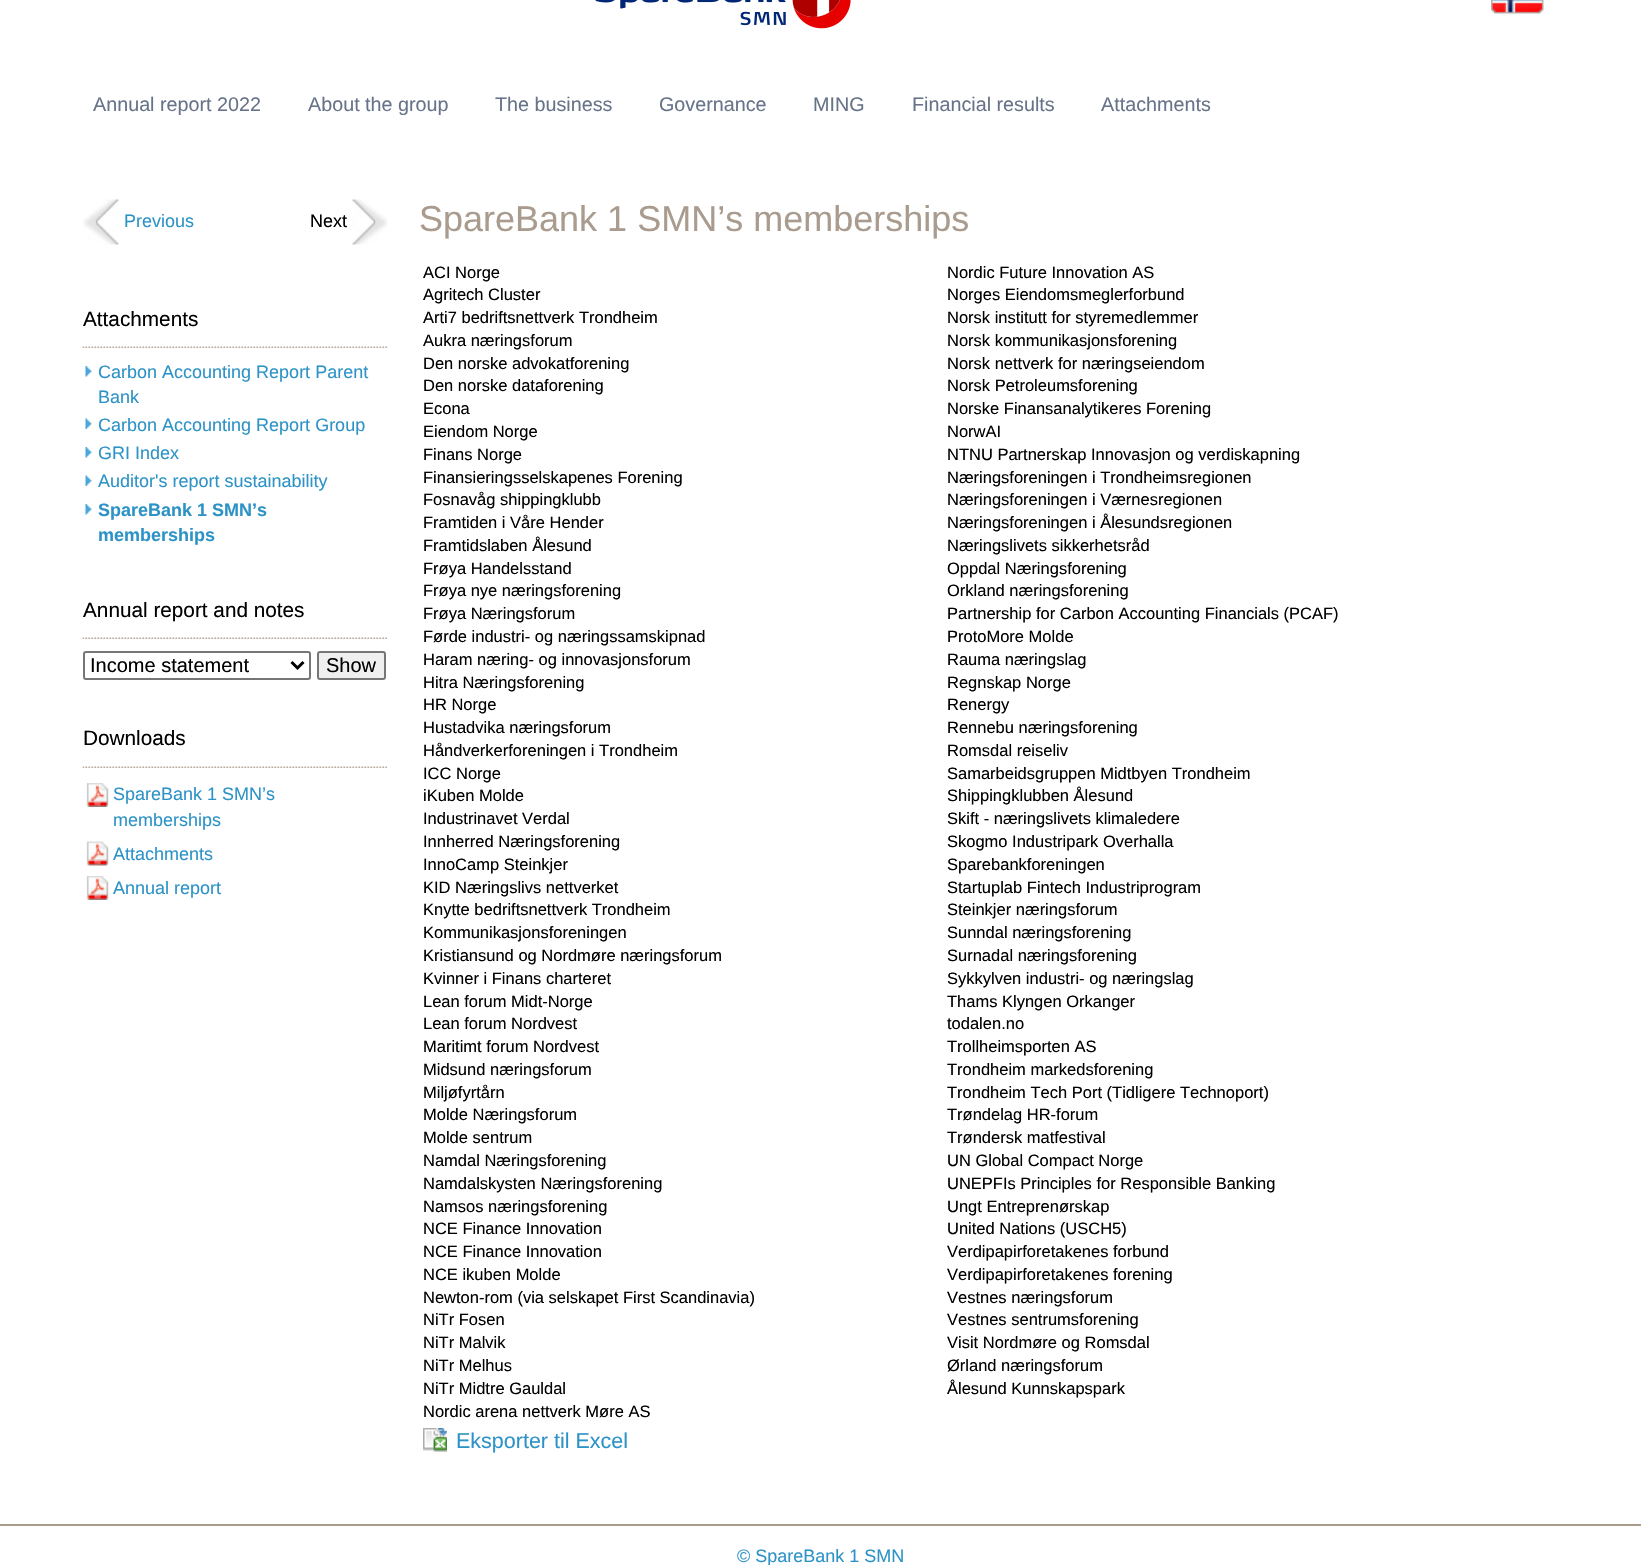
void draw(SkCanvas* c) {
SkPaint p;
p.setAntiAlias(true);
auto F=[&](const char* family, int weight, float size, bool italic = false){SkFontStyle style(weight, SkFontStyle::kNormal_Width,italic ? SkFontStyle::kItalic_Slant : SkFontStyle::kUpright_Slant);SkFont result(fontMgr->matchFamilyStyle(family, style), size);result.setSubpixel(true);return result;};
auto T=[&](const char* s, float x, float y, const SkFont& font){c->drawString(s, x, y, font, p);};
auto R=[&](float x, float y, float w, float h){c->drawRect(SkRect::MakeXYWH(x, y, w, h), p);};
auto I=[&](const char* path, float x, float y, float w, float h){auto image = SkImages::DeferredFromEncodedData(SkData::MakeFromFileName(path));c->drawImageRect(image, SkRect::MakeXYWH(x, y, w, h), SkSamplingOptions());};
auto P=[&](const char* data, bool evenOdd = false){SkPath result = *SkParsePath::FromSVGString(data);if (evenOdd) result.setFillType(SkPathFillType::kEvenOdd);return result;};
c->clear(0xffffffff);
I("1.png",595,0,256,29);
I("2.png",1491,0,53,14);
auto f1 = F("Liberation Sans",400,19.75);
p.setColor(0xff677389);
T("Annual report 2022",93,111,f1);
T("About the group",308,111,f1);
T("The business",495,111,f1);
T("Governance",659,111,f1);
T("MING",813,111,f1);
T("Financial results",912,111,f1);
T("Attachments",1101,111,f1);
I("3.png",83,199,36,46);
auto f2 = F("Liberation Sans",400,18);
p.setColor(0xff2d93c7);
T("Previous",124,227,f2);
p.setColor(0xff000000);
T("Next",310,227,f2);
I("4.png",352,199,35,46);
I("5.png",82,346,305,2);
auto f3 = F("Liberation Sans",400,20.75);
T("Attachments",83,326,f3);
I("6.png",85,366,7,11);
p.setColor(0xff2d93c7);
T("Carbon Accounting Report Parent",98,378,f2);
T("Bank",98,403,f2);
I("7.png",85,418,7,11);
T("Carbon Accounting Report Group",98,431,f2);
I("6.png",85,447,7,11);
T("GRI Index",98,459,f2);
I("7.png",85,475,7,11);
T("Auditor's report sustainability",98,487,f2);
I("6.png",85,504,7,11);
auto f4 = F("Liberation Sans",700,18);
T("SpareBank 1 SMN’s",98,516,f4);
T("memberships",98,541,f4);
I("5.png",82,637,305,2);
p.setColor(0xff000000);
T("Annual report and notes",83,617,f3);
p.setStroke(true);
p.setStrokeWidth(2);
p.setColor(0xff767676);
c->drawRoundRect(SkRect::MakeXYWH(84,652,226,27),2,2,p);
p.setStrokeWidth(3);
p.setColor(0xff000000);
c->drawPath(P("M291.5 662l6 6l6-6"),p);
auto f5 = F("Liberation Sans",400,20);
p.setStroke(false);
T("Income statement",90,672,f5);
p.setColor(0xffefefef);
c->drawRoundRect(SkRect::MakeXYWH(318,652,67,27),2,2,p);
p.setStroke(true);
p.setStrokeWidth(2);
p.setColor(0xff767676);
c->drawRoundRect(SkRect::MakeXYWH(318,652,67,27),2,2,p);
p.setStroke(false);
p.setColor(0xff000000);
T("Show",326,672,f5);
I("5.png",82,766,305,2);
T("Downloads",83,745,f3);
I("8.png",86,783,23,24);
p.setColor(0xff2d93c7);
T("SpareBank 1 SMN’s",113,800,f2);
T("memberships",113,826,f2);
I("9.png",86,841,23,25);
T("Attachments",113,860,f2);
I("8.png",86,876,23,24);
T("Annual report",113,894,f2);
auto f6 = F("Liberation Sans",400,36);
p.setColor(0xffa99b8e);
T("SpareBank 1 SMN’s memberships",419,231,f6);
auto f7 = F("Liberation Sans",400,16.5);
p.setColor(0xff000000);
T("ACI Norge",423,278,f7);
T("Nordic Future Innovation AS",947,278,f7);
T("Agritech Cluster",423,300,f7);
T("Norges Eiendomsmeglerforbund",947,300,f7);
T("Arti7 bedriftsnettverk Trondheim",423,323,f7);
T("Norsk institutt for styremedlemmer",947,323,f7);
T("Aukra næringsforum",423,346,f7);
T("Norsk kommunikasjonsforening",947,346,f7);
T("Den norske advokatforening",423,369,f7);
T("Norsk nettverk for næringseiendom",947,369,f7);
T("Den norske dataforening",423,391,f7);
T("Norsk Petroleumsforening",947,391,f7);
T("Econa",423,414,f7);
T("Norske Finansanalytikeres Forening",947,414,f7);
T("Eiendom Norge",423,437,f7);
T("NorwAI",947,437,f7);
T("Finans Norge",423,460,f7);
T("NTNU Partnerskap Innovasjon og verdiskapning",947,460,f7);
T("Finansieringsselskapenes Forening",423,483,f7);
T("Næringsforeningen i Trondheimsregionen",947,483,f7);
T("Fosnavåg shippingklubb",423,505,f7);
T("Næringsforeningen i Værnesregionen",947,505,f7);
T("Framtiden i Våre Hender",423,528,f7);
T("Næringsforeningen i Ålesundsregionen",947,528,f7);
T("Framtidslaben Ålesund",423,551,f7);
T("Næringslivets sikkerhetsråd",947,551,f7);
T("Frøya Handelsstand",423,574,f7);
T("Oppdal Næringsforening",947,574,f7);
T("Frøya nye næringsforening",423,596,f7);
T("Orkland næringsforening",947,596,f7);
T("Frøya Næringsforum",423,619,f7);
T("Partnership for Carbon Accounting Financials (PCAF)",947,619,f7);
T("Førde industri- og næringssamskipnad",423,642,f7);
T("ProtoMore Molde",947,642,f7);
T("Haram næring- og innovasjonsforum",423,665,f7);
T("Rauma næringslag",947,665,f7);
T("Hitra Næringsforening",423,688,f7);
T("Regnskap Norge",947,688,f7);
T("HR Norge",423,710,f7);
T("Renergy",947,710,f7);
T("Hustadvika næringsforum",423,733,f7);
T("Rennebu næringsforening",947,733,f7);
T("Håndverkerforeningen i Trondheim",423,756,f7);
T("Romsdal reiseliv",947,756,f7);
T("ICC Norge",423,779,f7);
T("Samarbeidsgruppen Midtbyen Trondheim",947,779,f7);
T("iKuben Molde",423,801,f7);
T("Shippingklubben Ålesund",947,801,f7);
T("Industrinavet Verdal",423,824,f7);
T("Skift - næringslivets klimaledere",947,824,f7);
T("Innherred Næringsforening",423,847,f7);
T("Skogmo Industripark Overhalla",947,847,f7);
T("InnoCamp Steinkjer",423,870,f7);
T("Sparebankforeningen",947,870,f7);
T("KID Næringslivs nettverket",423,893,f7);
T("Startuplab Fintech Industriprogram",947,893,f7);
T("Knytte bedriftsnettverk Trondheim",423,915,f7);
T("Steinkjer næringsforum",947,915,f7);
T("Kommunikasjonsforeningen",423,938,f7);
T("Sunndal næringsforening",947,938,f7);
T("Kristiansund og Nordmøre næringsforum",423,961,f7);
T("Surnadal næringsforening",947,961,f7);
T("Kvinner i Finans charteret",423,984,f7);
T("Sykkylven industri- og næringslag",947,984,f7);
T("Lean forum Midt-Norge",423,1007,f7);
T("Thams Klyngen Orkanger",947,1007,f7);
T("Lean forum Nordvest",423,1029,f7);
T("todalen.no",947,1029,f7);
T("Maritimt forum Nordvest",423,1052,f7);
T("Trollheimsporten AS",947,1052,f7);
T("Midsund næringsforum",423,1075,f7);
T("Trondheim markedsforening",947,1075,f7);
T("Miljøfyrtårn",423,1098,f7);
T("Trondheim Tech Port (Tidligere Technoport)",947,1098,f7);
T("Molde Næringsforum",423,1120,f7);
T("Trøndelag HR-forum",947,1120,f7);
T("Molde sentrum",423,1143,f7);
T("Trøndersk matfestival",947,1143,f7);
T("Namdal Næringsforening",423,1166,f7);
T("UN Global Compact Norge",947,1166,f7);
T("Namdalskysten Næringsforening",423,1189,f7);
T("UNEPFIs Principles for Responsible Banking",947,1189,f7);
T("Namsos næringsforening",423,1212,f7);
T("Ungt Entreprenørskap",947,1212,f7);
T("NCE Finance Innovation",423,1234,f7);
T("United Nations (USCH5)",947,1234,f7);
T("NCE Finance Innovation",423,1257,f7);
T("Verdipapirforetakenes forbund",947,1257,f7);
T("NCE ikuben Molde",423,1280,f7);
T("Verdipapirforetakenes forening",947,1280,f7);
T("Newton-rom (via selskapet First Scandinavia)",423,1303,f7);
T("Vestnes næringsforum",947,1303,f7);
T("NiTr Fosen",423,1325,f7);
T("Vestnes sentrumsforening",947,1325,f7);
T("NiTr Malvik",423,1348,f7);
T("Visit Nordmøre og Romsdal",947,1348,f7);
T("NiTr Melhus",423,1371,f7);
T("Ørland næringsforum",947,1371,f7);
T("NiTr Midtre Gauldal",423,1394,f7);
T("Ålesund Kunnskapspark",947,1394,f7);
T("Nordic arena nettverk Møre AS",423,1417,f7);
I("10.png",423,1428,24,24);
auto f8 = F("Liberation Sans",400,21.5);
p.setColor(0xff2d93c7);
T("Eksporter til Excel",456,1448,f8);
p.setColor(0xffa99b8e);
R(0,1524,1641,2);
p.setColor(0xff2d93c7);
T("© SpareBank 1 SMN",737,1562,f2);
}
